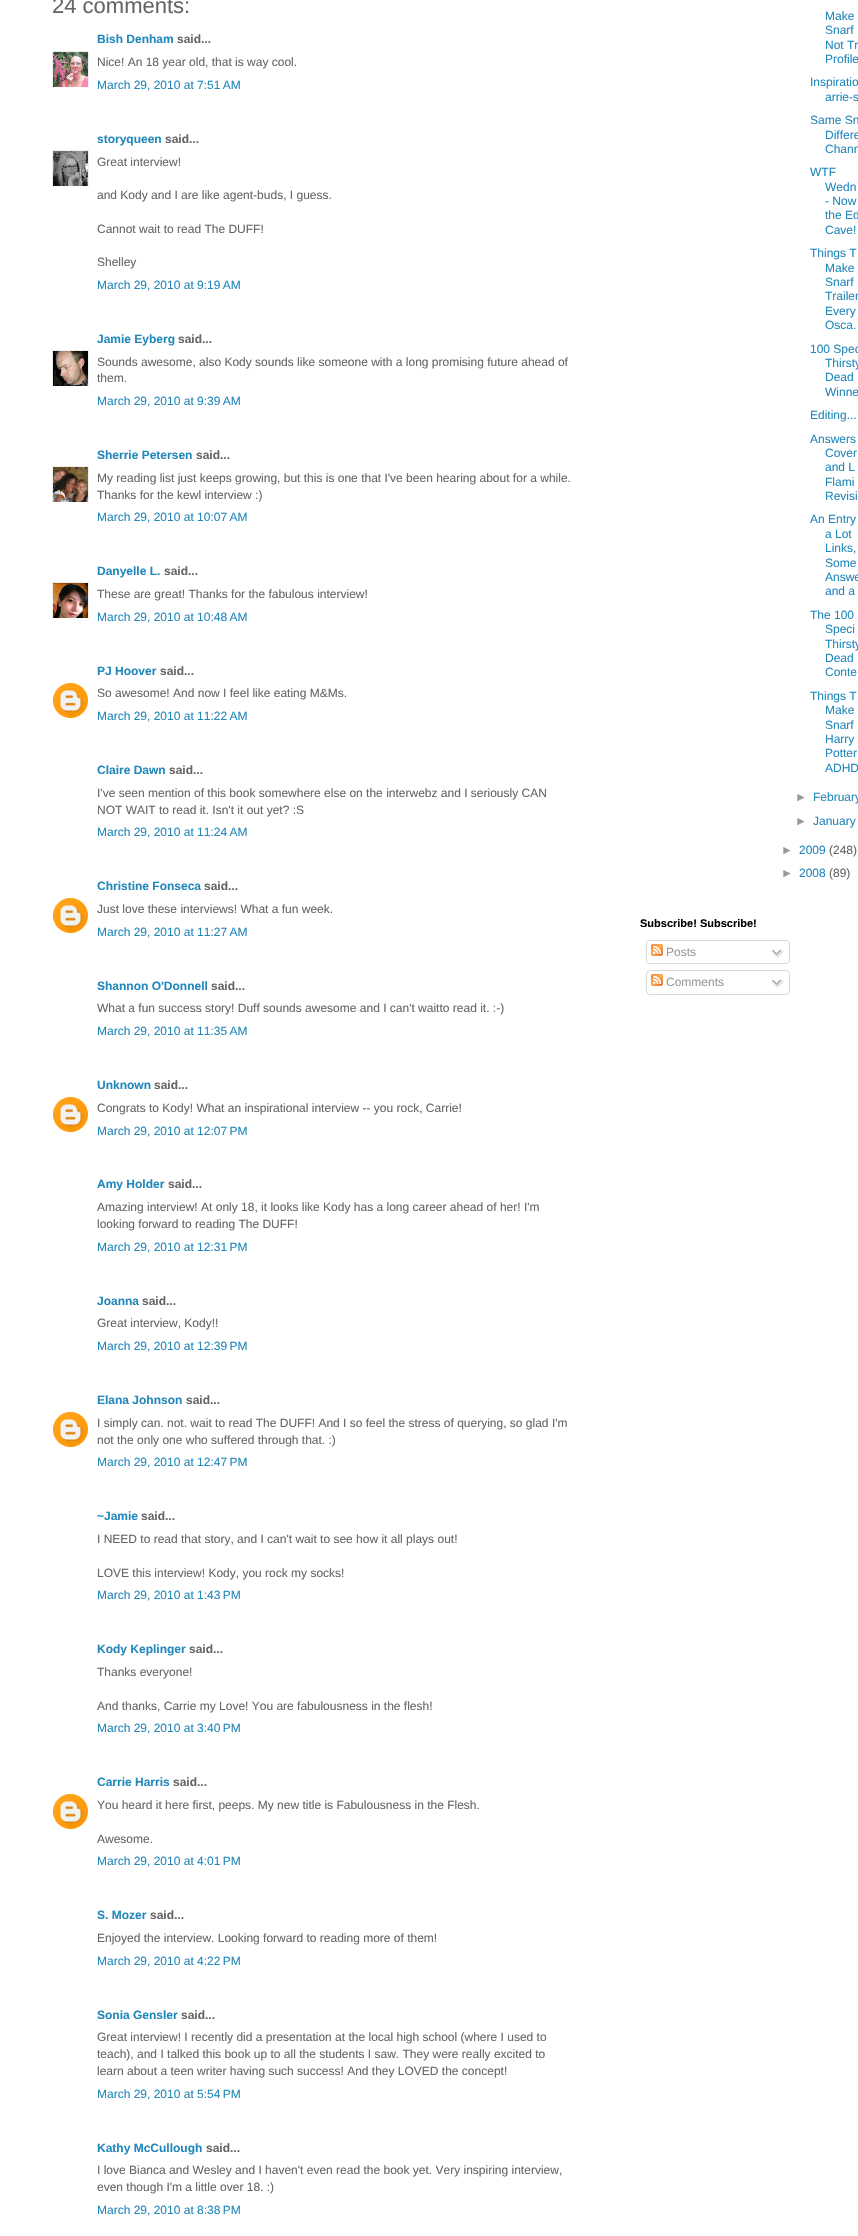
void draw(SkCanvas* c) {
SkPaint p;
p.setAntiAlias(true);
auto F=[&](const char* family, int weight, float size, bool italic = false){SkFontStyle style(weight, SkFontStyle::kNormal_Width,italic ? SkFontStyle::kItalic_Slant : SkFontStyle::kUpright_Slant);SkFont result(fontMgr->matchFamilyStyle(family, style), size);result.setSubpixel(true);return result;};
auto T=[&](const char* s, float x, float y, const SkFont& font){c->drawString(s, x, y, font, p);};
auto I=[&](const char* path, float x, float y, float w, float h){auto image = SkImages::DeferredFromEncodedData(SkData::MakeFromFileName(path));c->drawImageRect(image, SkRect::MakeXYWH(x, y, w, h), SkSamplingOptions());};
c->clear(0xffffffff);
auto f1 = F("Liberation Sans",400,22);
p.setColor(0xff666666);
T("24 comments:",52,13,f1);
auto f2 = F("Liberation Sans",700,12);
p.setColor(0xff2288bb);
T("Bish Denham",97,43,f2);
p.setColor(0xff666666);
T("said...",177,43,f2);
c->save();
c->clipRect(SkRect::MakeXYWH(52,51,37,36));
p.setStroke(true);
p.setStrokeWidth(1);
p.setColor(0xffeeeeee);
c->drawRect(SkRect::MakeXYWH(52.5,51.5,36,36),p);
c->restore();
I("1.png",53,52,35,35);
auto f3 = F("Liberation Sans",400,12);
p.setStroke(false);
p.setColor(0xff666666);
T("Nice! An 18 year old, that is way cool.",97,66,f3);
p.setColor(0xff2288bb);
T("March 29, 2010 at 7:51 AM",97,89,f3);
T("storyqueen",97,143,f2);
p.setColor(0xff666666);
T("said...",165,143,f2);
c->save();
c->clipRect(SkRect::MakeXYWH(52,150,37,36));
p.setStroke(true);
p.setColor(0xffeeeeee);
c->drawRect(SkRect::MakeXYWH(52.5,150.5,36,36),p);
c->restore();
I("2.png",53,151,35,35);
p.setStroke(false);
p.setColor(0xff666666);
T("Great interview!",97,166,f3);
T("and Kody and I are like agent-buds, I guess.",97,199,f3);
T("Cannot wait to read The DUFF!",97,233,f3);
T("Shelley",97,266,f3);
p.setColor(0xff2288bb);
T("March 29, 2010 at 9:19 AM",97,289,f3);
T("Jamie Eyberg",97,343,f2);
p.setColor(0xff666666);
T("said...",178,343,f2);
c->save();
c->clipRect(SkRect::MakeXYWH(52,350,37,36));
p.setStroke(true);
p.setColor(0xffeeeeee);
c->drawRect(SkRect::MakeXYWH(52.5,350.5,36,36),p);
c->restore();
I("3.png",53,351,35,35);
p.setStroke(false);
p.setColor(0xff666666);
T("Sounds awesome, also Kody sounds like someone with a long promising future ahead of",97,366,f3);
T("them.",97,382,f3);
p.setColor(0xff2288bb);
T("March 29, 2010 at 9:39 AM",97,405,f3);
T("Sherrie Petersen",97,459,f2);
p.setColor(0xff666666);
T("said...",196,459,f2);
c->save();
c->clipRect(SkRect::MakeXYWH(52,466,37,36));
p.setStroke(true);
p.setColor(0xffeeeeee);
c->drawRect(SkRect::MakeXYWH(52.5,466.5,36,36),p);
c->restore();
I("4.png",53,467,35,35);
p.setStroke(false);
p.setColor(0xff666666);
T("My reading list just keeps growing, but this is one that I've been hearing about for a while.",97,482,f3);
T("Thanks for the kewl interview :)",97,499,f3);
p.setColor(0xff2288bb);
T("March 29, 2010 at 10:07 AM",97,521,f3);
T("Danyelle L.",97,575,f2);
p.setColor(0xff666666);
T("said...",164,575,f2);
c->save();
c->clipRect(SkRect::MakeXYWH(52,582,37,36));
p.setStroke(true);
p.setColor(0xffeeeeee);
c->drawRect(SkRect::MakeXYWH(52.5,582.5,36,36),p);
c->restore();
I("5.png",53,583,35,35);
p.setStroke(false);
p.setColor(0xff666666);
T("These are great! Thanks for the fabulous interview!",97,598,f3);
p.setColor(0xff2288bb);
T("March 29, 2010 at 10:48 AM",97,621,f3);
T("PJ Hoover",97,675,f2);
p.setColor(0xff666666);
T("said...",160,675,f2);
I("6.png",53,683,35,35);
T("So awesome! And now I feel like eating M&Ms.",97,697,f3);
p.setColor(0xff2288bb);
T("March 29, 2010 at 11:22 AM",97,720,f3);
T("Claire Dawn",97,774,f2);
p.setColor(0xff666666);
T("said...",169,774,f2);
T("I've seen mention of this book somewhere else on the interwebz and I seriously CAN",97,797,f3);
T("NOT WAIT to read it. Isn't it out yet? :S",97,814,f3);
p.setColor(0xff2288bb);
T("March 29, 2010 at 11:24 AM",97,836,f3);
T("Christine Fonseca",97,890,f2);
p.setColor(0xff666666);
T("said...",204,890,f2);
I("6.png",53,898,35,35);
T("Just love these interviews! What a fun week.",97,913,f3);
p.setColor(0xff2288bb);
T("March 29, 2010 at 11:27 AM",97,936,f3);
T("Shannon O'Donnell",97,990,f2);
p.setColor(0xff666666);
T("said...",211,990,f2);
T("What a fun success story! Duff sounds awesome and I can't waitto read it. :-)",97,1012,f3);
p.setColor(0xff2288bb);
T("March 29, 2010 at 11:35 AM",97,1035,f3);
T("Unknown",97,1089,f2);
p.setColor(0xff666666);
T("said...",154,1089,f2);
I("6.png",53,1097,35,35);
T("Congrats to Kody! What an inspirational interview -- you rock, Carrie!",97,1112,f3);
p.setColor(0xff2288bb);
T("March 29, 2010 at 12:07 PM",97,1135,f3);
T("Amy Holder",97,1188,f2);
p.setColor(0xff666666);
T("said...",168,1188,f2);
T("Amazing interview! At only 18, it looks like Kody has a long career ahead of her! I'm",97,1211,f3);
T("looking forward to reading The DUFF!",97,1228,f3);
p.setColor(0xff2288bb);
T("March 29, 2010 at 12:31 PM",97,1251,f3);
T("Joanna",97,1305,f2);
p.setColor(0xff666666);
T("said...",142,1305,f2);
T("Great interview, Kody!!",97,1327,f3);
p.setColor(0xff2288bb);
T("March 29, 2010 at 12:39 PM",97,1350,f3);
T("Elana Johnson",97,1404,f2);
p.setColor(0xff666666);
T("said...",186,1404,f2);
I("6.png",53,1412,35,35);
T("I simply can. not. wait to read The DUFF! And I so feel the stress of querying, so glad I'm",97,1427,f3);
T("not the only one who suffered through that. :)",97,1444,f3);
p.setColor(0xff2288bb);
T("March 29, 2010 at 12:47 PM",97,1466,f3);
T("~Jamie",97,1520,f2);
p.setColor(0xff666666);
T("said...",141,1520,f2);
T("I NEED to read that story, and I can't wait to see how it all plays out!",97,1543,f3);
T("LOVE this interview! Kody, you rock my socks!",97,1577,f3);
p.setColor(0xff2288bb);
T("March 29, 2010 at 1:43 PM",97,1599,f3);
T("Kody Keplinger",97,1653,f2);
p.setColor(0xff666666);
T("said...",189,1653,f2);
T("Thanks everyone!",97,1676,f3);
T("And thanks, Carrie my Love! You are fabulousness in the flesh!",97,1710,f3);
p.setColor(0xff2288bb);
T("March 29, 2010 at 3:40 PM",97,1732,f3);
T("Carrie Harris",97,1786,f2);
p.setColor(0xff666666);
T("said...",173,1786,f2);
I("6.png",53,1794,35,35);
T("You heard it here first, peeps. My new title is Fabulousness in the Flesh.",97,1809,f3);
T("Awesome.",97,1843,f3);
p.setColor(0xff2288bb);
T("March 29, 2010 at 4:01 PM",97,1865,f3);
T("S. Mozer",97,1919,f2);
p.setColor(0xff666666);
T("said...",150,1919,f2);
T("Enjoyed the interview. Looking forward to reading more of them!",97,1942,f3);
p.setColor(0xff2288bb);
T("March 29, 2010 at 4:22 PM",97,1965,f3);
T("Sonia Gensler",97,2019,f2);
p.setColor(0xff666666);
T("said...",181,2019,f2);
T("Great interview! I recently did a presentation at the local high school (where I used to",97,2041,f3);
T("teach), and I talked this book up to all the students I saw. They were really excited to",97,2058,f3);
T("learn about a teen writer having such success! And they LOVED the concept!",97,2075,f3);
p.setColor(0xff2288bb);
T("March 29, 2010 at 5:54 PM",97,2098,f3);
T("Kathy McCullough",97,2152,f2);
p.setColor(0xff666666);
T("said...",206,2152,f2);
T("I love Bianca and Wesley and I haven't even read the book yet. Very inspiring interview,",97,2174,f3);
T("even though I'm a little over 18. :)",97,2191,f3);
p.setColor(0xff2288bb);
T("March 29, 2010 at 8:38 PM",97,2214,f3);
T("Make",825,20,f3);
T("Snarf",825,34,f3);
T("Not Tr",825,49,f3);
T("Profile",825,63,f3);
T("Inspiratio",810,86,f3);
T("arrie-s",825,101,f3);
T("Same Sn",810,124,f3);
T("Differe",825,139,f3);
T("Chann",825,153,f3);
T("WTF",810,176,f3);
T("Wedn",825,191,f3);
T("- Now",825,205,f3);
T("the Ed",825,219,f3);
T("Cave!",825,234,f3);
T("Things T",810,257,f3);
T("Make",825,272,f3);
T("Snarf",825,286,f3);
T("Trailer",825,300,f3);
T("Every",825,315,f3);
T("Osca.",825,329,f3);
T("100 Spec",810,353,f3);
T("Thirsty",825,367,f3);
T("Dead",825,381,f3);
T("Winne",825,396,f3);
T("Editing...",810,419,f3);
T("Answers",810,443,f3);
T("Cover",825,457,f3);
T("and L",825,471,f3);
T("Flami",825,486,f3);
T("Revisi",825,500,f3);
T("An Entry",810,523,f3);
T("a Lot",825,538,f3);
T("Links,",825,552,f3);
T("Some",825,567,f3);
T("Answe",825,581,f3);
T("and a",825,595,f3);
T("The 100",810,619,f3);
T("Speci",825,633,f3);
T("Thirsty",825,648,f3);
T("Dead",825,662,f3);
T("Conte",825,676,f3);
T("Things T",810,700,f3);
T("Make",825,714,f3);
T("Snarf",825,729,f3);
T("Harry",825,743,f3);
T("Potter",825,757,f3);
T("ADHD",825,772,f3);
p.setColor(0xff999999);
T("►",795,801,f3);
p.setColor(0xff2288bb);
T("February",813,801,f3);
p.setColor(0xff999999);
T("►",795,825,f3);
p.setColor(0xff2288bb);
T("January",813,825,f3);
p.setColor(0xff999999);
T("►",781,854,f3);
p.setColor(0xff2288bb);
T("2009",799,854,f3);
p.setColor(0xff666666);
T("(248)",829,854,f3);
p.setColor(0xff999999);
T("►",781,877,f3);
p.setColor(0xff2288bb);
T("2008",799,877,f3);
p.setColor(0xff666666);
T("(89)",829,877,f3);
auto f4 = F("Liberation Sans",700,11);
p.setColor(0xff000000);
T("Subscribe! Subscribe!",640,927,f4);
I("7.png",646,940,144,21);
I("8.png",651,944,12,12);
p.setColor(0xff999999);
T("Posts",666,956,f3);
I("9.png",771,949,13,9);
I("10.png",646,961,144,3);
I("11.png",646,970,144,22);
I("8.png",651,974,12,12);
T("Comments",666,986,f3);
I("9.png",771,979,13,9);
I("10.png",646,992,144,3);
}
